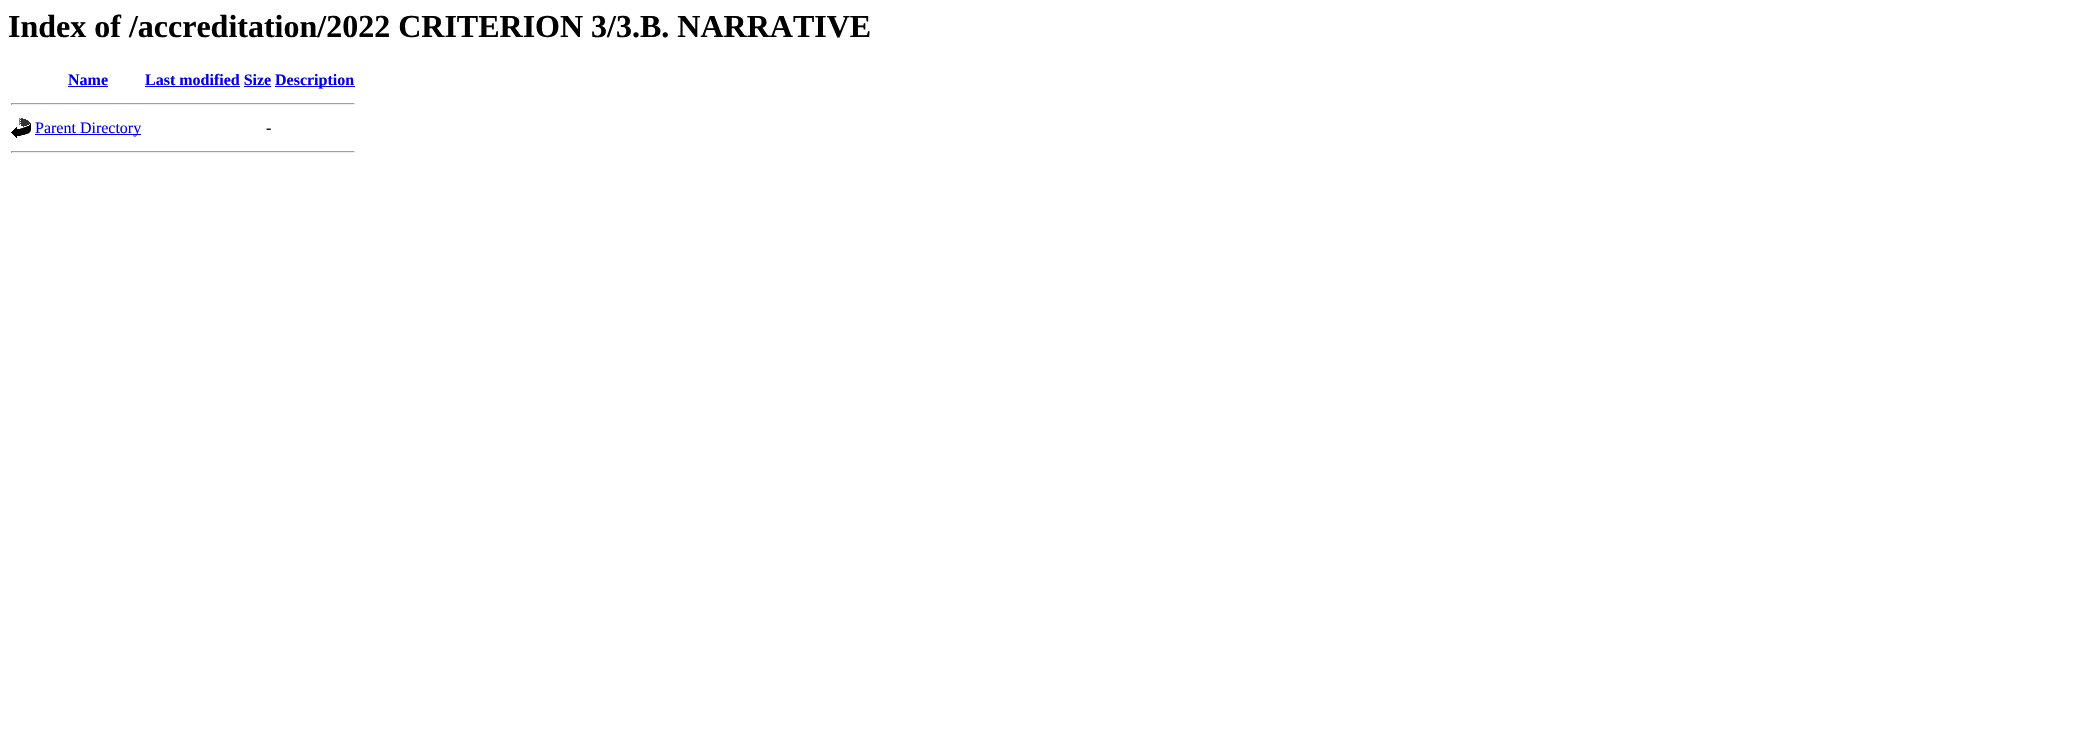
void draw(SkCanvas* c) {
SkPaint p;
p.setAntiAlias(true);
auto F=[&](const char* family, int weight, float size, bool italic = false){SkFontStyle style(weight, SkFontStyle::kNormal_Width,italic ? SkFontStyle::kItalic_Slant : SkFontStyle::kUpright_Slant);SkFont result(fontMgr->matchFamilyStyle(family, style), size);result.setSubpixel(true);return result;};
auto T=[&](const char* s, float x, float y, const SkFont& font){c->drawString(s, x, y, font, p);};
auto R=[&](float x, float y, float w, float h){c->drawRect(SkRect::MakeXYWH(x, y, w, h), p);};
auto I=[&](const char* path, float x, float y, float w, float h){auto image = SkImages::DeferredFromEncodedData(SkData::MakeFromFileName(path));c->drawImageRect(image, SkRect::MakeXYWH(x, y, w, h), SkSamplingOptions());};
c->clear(0xffffffff);
auto f1 = F("Liberation Serif",700,32);
p.setColor(0xff000000);
T("Index of /accreditation/2022 CRITERION 3/3.B. NARRATIVE",8,37,f1);
auto f2 = F("Liberation Serif",700,16);
p.setColor(0xff0000ee);
T("Name",68,85,f2);
R(68,86,40,1);
T("Last modified Size",145,85,f2);
R(145,86,95,1);
R(275,86,80,1);
T("Description",275,85,f2);
R(244,86,27,1);
p.setColor(0xff9f9f9f);
R(11,103,344,1);
p.setColor(0xffeeeeee);
R(354,103,1,2);
R(11,104,344,1);
p.setColor(0xff9f9f9f);
R(11,103,1,2);
I("1.png",11,118,20,20);
p.setColor(0xff0000ee);
R(35,134,106,1);
auto f3 = F("Liberation Serif",400,16);
T("Parent Directory",35,133,f3);
p.setColor(0xff000000);
T("-",266,133,f3);
p.setColor(0xff9f9f9f);
R(11,151,344,1);
p.setColor(0xffeeeeee);
R(354,151,1,2);
R(11,152,344,1);
p.setColor(0xff9f9f9f);
R(11,151,1,2);
}
